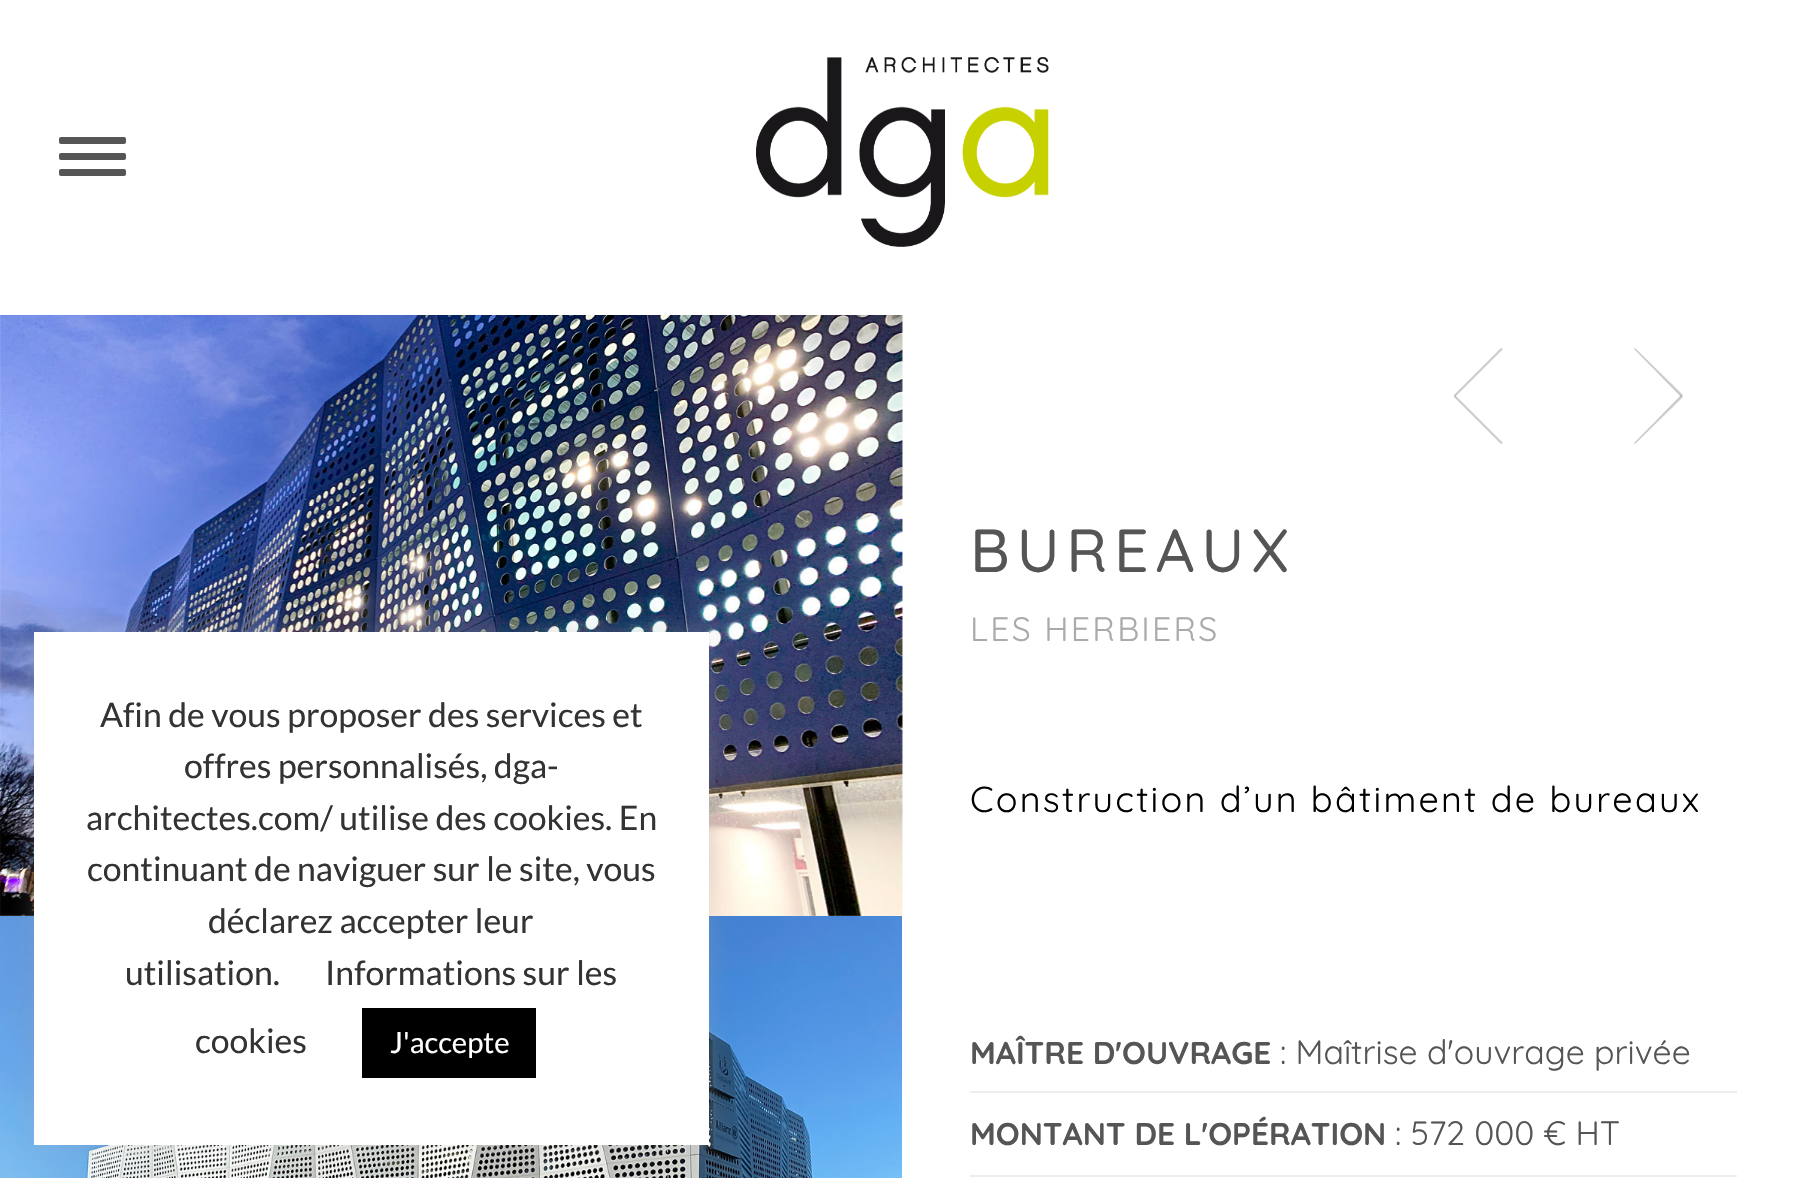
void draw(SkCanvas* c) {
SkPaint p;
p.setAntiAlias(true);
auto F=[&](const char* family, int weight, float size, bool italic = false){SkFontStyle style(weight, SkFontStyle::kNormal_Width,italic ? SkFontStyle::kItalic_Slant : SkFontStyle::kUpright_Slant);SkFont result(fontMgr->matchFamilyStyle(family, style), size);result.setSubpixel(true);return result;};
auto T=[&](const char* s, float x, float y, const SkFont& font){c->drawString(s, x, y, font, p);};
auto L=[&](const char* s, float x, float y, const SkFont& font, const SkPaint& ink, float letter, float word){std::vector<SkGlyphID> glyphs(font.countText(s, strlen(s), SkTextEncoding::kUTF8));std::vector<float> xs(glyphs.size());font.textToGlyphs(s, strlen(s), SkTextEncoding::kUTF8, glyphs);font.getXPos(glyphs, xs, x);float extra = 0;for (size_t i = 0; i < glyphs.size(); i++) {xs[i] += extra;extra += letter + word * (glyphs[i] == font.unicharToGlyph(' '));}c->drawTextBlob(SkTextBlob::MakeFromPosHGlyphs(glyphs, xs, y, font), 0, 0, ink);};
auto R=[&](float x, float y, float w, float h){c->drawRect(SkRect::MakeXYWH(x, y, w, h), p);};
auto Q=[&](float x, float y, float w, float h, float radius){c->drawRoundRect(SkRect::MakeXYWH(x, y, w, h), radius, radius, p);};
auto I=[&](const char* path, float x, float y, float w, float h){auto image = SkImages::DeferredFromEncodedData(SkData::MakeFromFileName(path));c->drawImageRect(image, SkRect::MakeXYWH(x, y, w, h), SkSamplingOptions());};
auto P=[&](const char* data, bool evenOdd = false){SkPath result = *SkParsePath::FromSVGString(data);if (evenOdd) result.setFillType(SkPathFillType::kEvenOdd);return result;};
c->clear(0xffffffff);
I("2.png",0,315,903,601);
I("3.png",0,916,902,262);
p.setColor(0x4dacabab);
p.setMaskFilter(SkMaskFilter::MakeBlur(kNormal_SkBlurStyle, 11));
c->drawRect(SkRect::MakeXYWH(34,630,675,513),p);
p.setMaskFilter(nullptr);
p.setColor(0xffffffff);
R(34,632,675,513);
auto f1 = F("Lato",400,33.75);
p.setColor(0xff333333);
T("Afin de vous proposer des services et",100,727,f1);
T("offres personnalisés, dga-",184,778,f1);
T("architectes.com/ utilise des cookies. En",86,830,f1);
T("continuant de naviguer sur le site, vous",87,881,f1);
T("déclarez accepter leur",208,933,f1);
T("utilisation.",125,985,f1);
T("Informations sur les",325,985,f1);
T("cookies",195,1053,f1);
p.setColor(0xff000000);
R(362,1008,174,70);
auto f2 = F("Lato",400,29.25);
p.setColor(0xffffffff);
T("J'accepte",390,1053,f2);
p.setColor(0xff555555);
Q(59,137,67,7,2);
Q(59,153,67,7,2);
Q(59,169,67,7,2);
I("1.png",756,57,293,190);
p.setColor(0xffcccccc);
c->drawPath(P("M1454 395l47-47l2 1l-48 48z"),p);
p.setColor(0x33000000);
c->drawPath(P("M1455 395l48 48l-2 1l-47-47z"),p);
p.setColor(0xffcccccc);
c->drawPath(P("M1635 348l48 47l-2 2l-47-48z"),p);
p.setColor(0x33000000);
c->drawPath(P("M1634 443l47-48l2 2l-48 47z"),p);
auto f3 = F("Quicksand",500,60.75);
p.setColor(0xff555555);
L("BUREAUX",970,572,f3,p,6.75,0);
auto f4 = F("Quicksand",400,33.75);
p.setColor(0xffaaaaaa);
L("LES HERBIERS",970,641,f4,p,2.25,0);
auto f5 = F("Quicksand",400,36);
p.setColor(0xff000000);
L("Construction d’un bâtiment de bureaux",970,812,f5,p,2.25,0);
p.setColor(0xffeeeeee);
R(970,1091,767,2);
auto f6 = F("Quicksand",700,31.5);
p.setColor(0xff555555);
T("MAÎTRE D'OUVRAGE",970,1064,f6);
T(": Maîtrise d'ouvrage privée",1280,1064,f4);
p.setColor(0xffeeeeee);
R(970,1175,767,2);
p.setColor(0xff555555);
T("MONTANT DE L'OPÉRATION",970,1145,f6);
T(": 572 000 € HT",1395,1145,f4);
}
